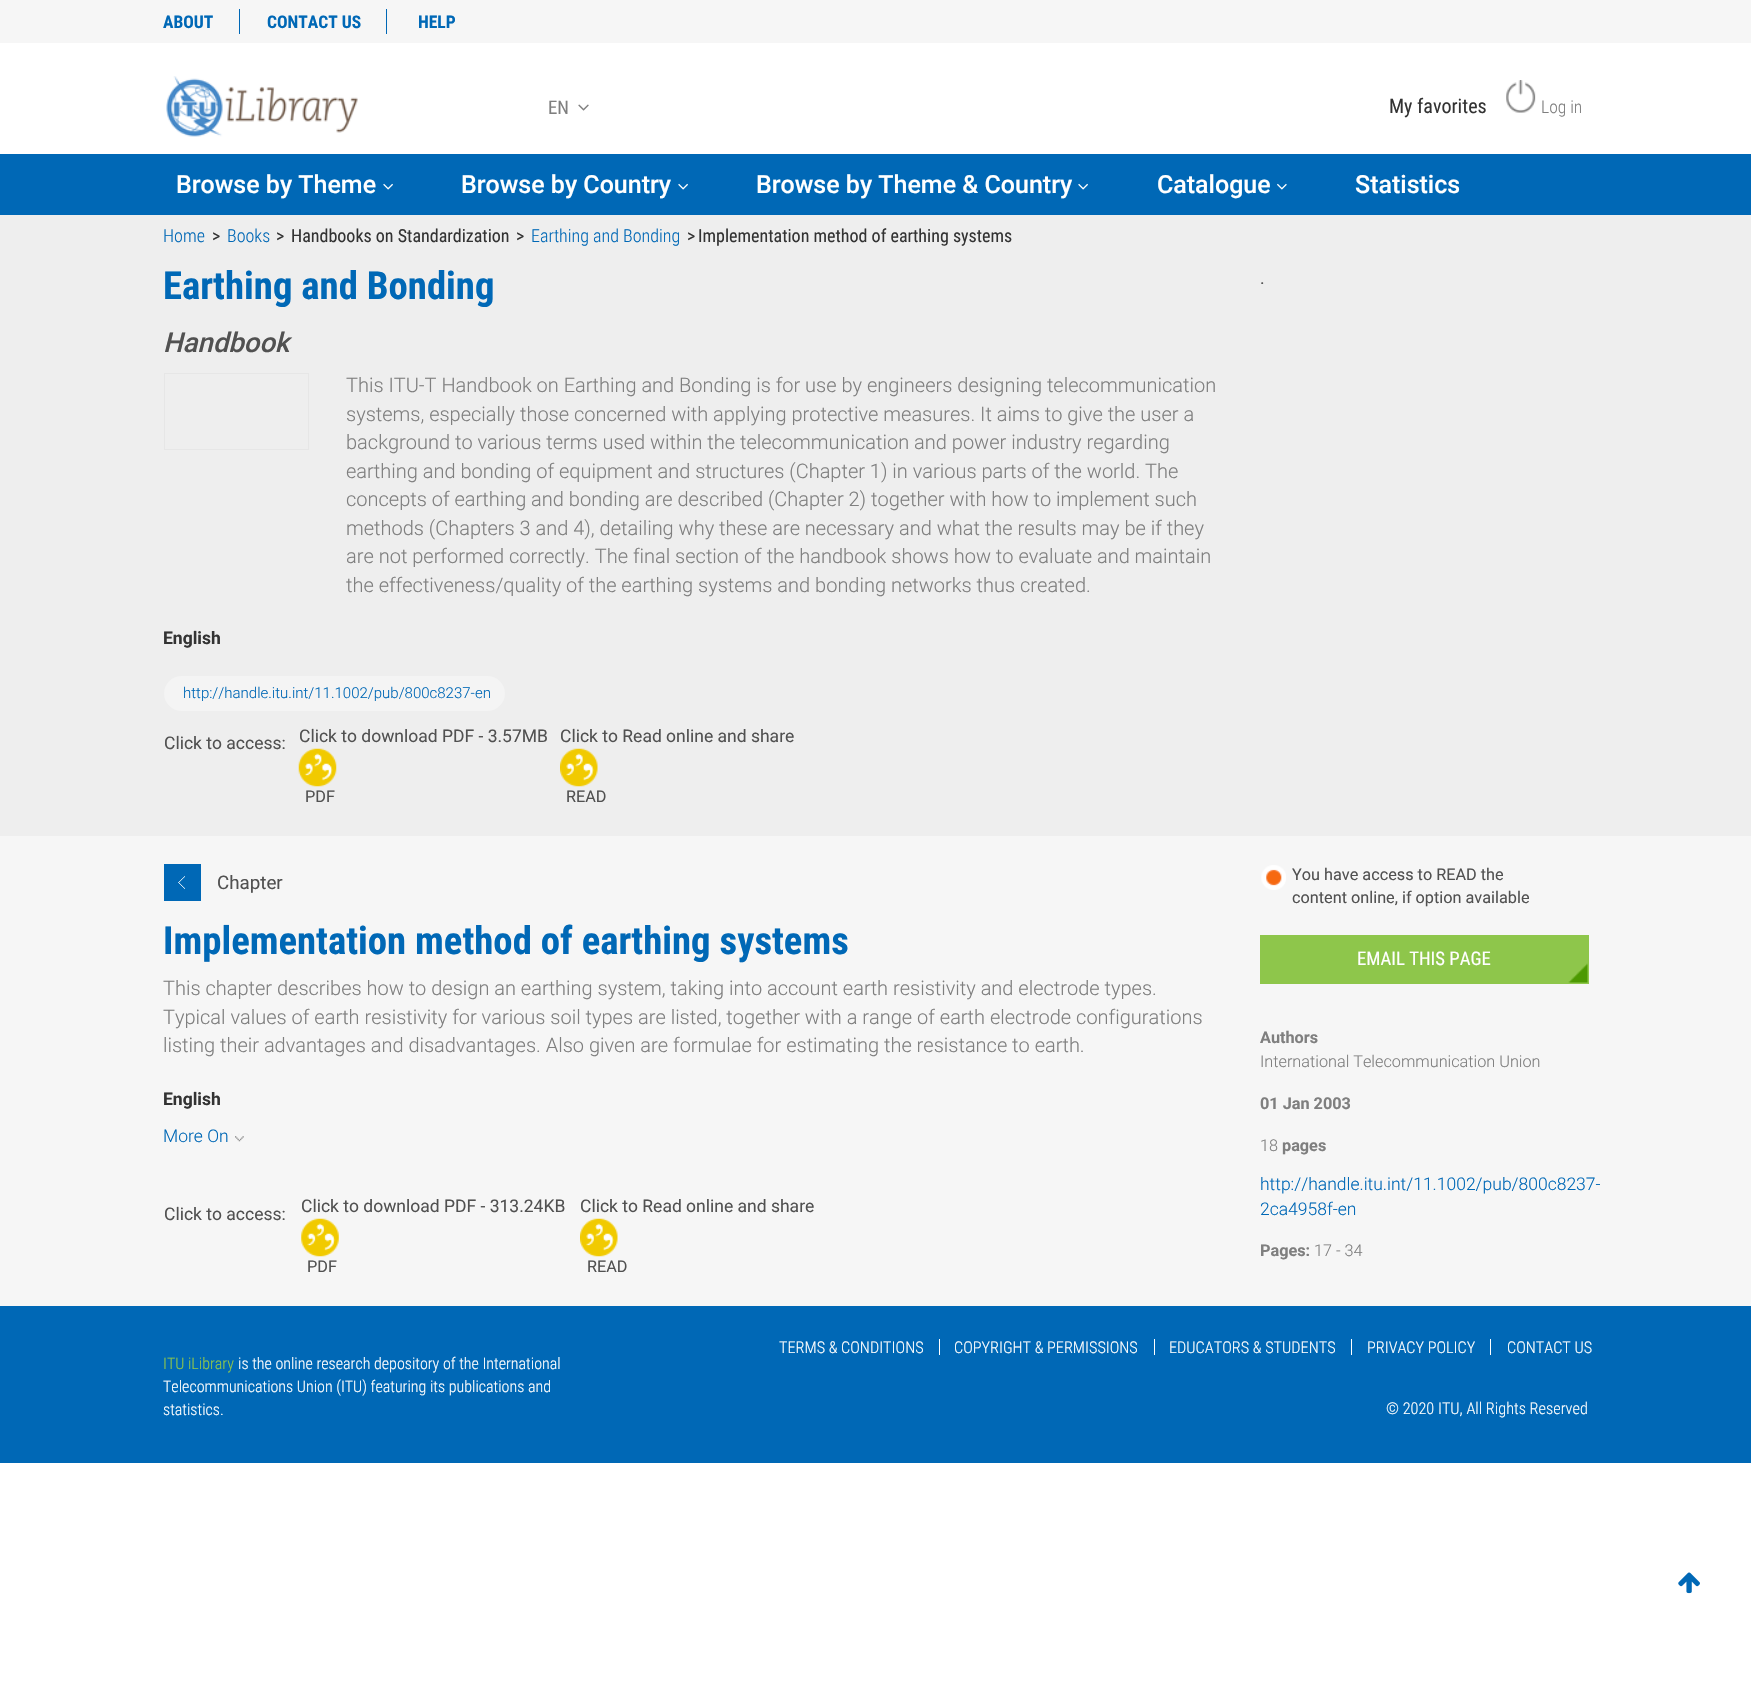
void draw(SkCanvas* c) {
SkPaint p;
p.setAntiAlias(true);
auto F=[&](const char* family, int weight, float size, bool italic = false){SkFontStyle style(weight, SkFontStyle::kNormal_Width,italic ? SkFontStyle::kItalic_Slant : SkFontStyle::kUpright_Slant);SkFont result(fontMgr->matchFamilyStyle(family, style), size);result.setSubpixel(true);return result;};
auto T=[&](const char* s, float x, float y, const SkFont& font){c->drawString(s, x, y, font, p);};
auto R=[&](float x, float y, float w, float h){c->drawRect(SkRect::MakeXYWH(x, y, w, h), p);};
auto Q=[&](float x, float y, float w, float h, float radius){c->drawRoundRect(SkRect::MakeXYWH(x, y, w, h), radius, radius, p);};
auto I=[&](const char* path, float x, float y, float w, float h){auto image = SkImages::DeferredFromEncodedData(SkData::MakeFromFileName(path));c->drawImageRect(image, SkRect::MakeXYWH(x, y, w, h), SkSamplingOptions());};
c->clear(0xffffffff);
p.setColor(0xfff6f6f6);
R(0,0,1751,43);
p.setColor(0xff0068b6);
R(239,9,1,25);
auto f1 = F("Roboto Condensed",700,17.5);
T("ABOUT",163,28,f1);
R(386,9,1,25);
T("CONTACT US",267,28,f1);
T("HELP",418,28,f1);
I("1.png",166,76,192,61);
auto f2 = F("Roboto Condensed",400,18.75);
p.setColor(0xff7f7f7f);
T("EN",548,114,f2);
I("2.png",578,104,11,7);
auto f3 = F("Roboto Condensed",400,20);
p.setColor(0xff333333);
T("My favorites",1389,113,f3);
I("3.png",1506,80,30,33);
auto f4 = F("Roboto Condensed",300,17.5);
p.setColor(0xff7f7f7f);
T("Log in",1541,113,f4);
p.setColor(0xff0068b6);
R(0,154,1751,61);
auto f5 = F("Roboto",500,25);
p.setColor(0xffffffff);
T("Browse by Theme",176,193,f5);
I("4.png",383,183,10,7);
T("Browse by Country",461,193,f5);
I("4.png",678,183,10,7);
T("Browse by Theme & Country",756,193,f5);
I("4.png",1078,183,10,7);
T("Catalogue",1157,193,f5);
I("5.png",1277,183,10,7);
T("Statistics",1355,193,f5);
p.setColor(0xffeeeeee);
R(0,215,1751,621);
auto f6 = F("Roboto Condensed",300,18);
p.setColor(0xff0068b6);
T("Home",163,242,f6);
auto f7 = F("Roboto Condensed",400,18);
p.setColor(0xff333333);
T(">",212,242,f7);
p.setColor(0xff0068b6);
T("Books",227,242,f6);
p.setColor(0xff333333);
T(">",276,242,f7);
T("Handbooks on Standardization",291,242,f7);
T(">",516,242,f7);
p.setColor(0xff0068b6);
T("Earthing and Bonding",531,242,f6);
p.setColor(0xff333333);
T(">",687,242,f7);
T("Implementation method of earthing systems",698,242,f7);
auto f8 = F("Roboto Condensed",700,38.75);
p.setColor(0xff0068b6);
T("Earthing and Bonding",163,299,f8);
auto f9 = F("Roboto",500,27.5,true);
p.setColor(0xff515151);
T("Handbook",163,352,f9);
p.setStroke(true);
p.setStrokeWidth(1);
p.setColor(0xffe6e6e6);
c->drawRect(SkRect::MakeXYWH(164.5,373.5,144,76),p);
auto f10 = F("Roboto",300,20);
p.setStroke(false);
p.setColor(0xff7f7f7f);
T("This ITU-T Handbook on Earthing and Bonding is for use by engineers designing telecommunication",346,392,f10);
T("systems, especially those concerned with applying protective measures. It aims to give the user a",346,421,f10);
T("background to various terms used within the telecommunication and power industry regarding",346,449,f10);
T("earthing and bonding of equipment and structures (Chapter 1) in various parts of the world. The",346,478,f10);
T("concepts of earthing and bonding are described (Chapter 2) together with how to implement such",346,506,f10);
T("methods (Chapters 3 and 4), detailing why these are necessary and what the results may be if they",346,535,f10);
T("are not performed correctly. The final section of the handbook shows how to evaluate and maintain",346,563,f10);
T("the effectiveness/quality of the earthing systems and bonding networks thus created.",346,592,f10);
auto f11 = F("Roboto",700,17.5);
p.setColor(0xff333333);
T("English",163,644,f11);
p.setColor(0xfff4f4f4);
Q(164,676,341,35,17.5);
auto f12 = F("Roboto",300,15);
p.setColor(0xff0068b6);
T("http://handle.itu.int/11.1002/pub/800c8237-en",183,698,f12);
auto f13 = F("Roboto",400,17.5);
p.setColor(0xff515151);
T("Click to access:",164,749,f13);
T("Click to download PDF - 3.57MB",299,742,f13);
I("6.png",298,748,39,39);
auto f14 = F("Roboto",400,16.25);
T("PDF",305,802,f14);
T("Click to Read online and share",560,742,f13);
I("7.png",560,748,38,39);
T("READ",566,802,f14);
T(".",1260,284,f13);
p.setColor(0xfff6f6f6);
R(0,836,1751,470);
p.setColor(0xff0068b6);
R(164,864,37,37);
I("8.png",178,876,7,13);
auto f15 = F("Roboto",400,18.75);
p.setColor(0xff515151);
T("Chapter",217,889,f15);
p.setColor(0xff0068b6);
T("Implementation method of earthing systems",163,954,f8);
p.setColor(0xff7f7f7f);
T("This chapter describes how to design an earthing system, taking into account earth resistivity and electrode types.",163,995,f10);
T("Typical values of earth resistivity for various soil types are listed, together with a range of earth electrode configurations",163,1024,f10);
T("listing their advantages and disadvantages. Also given are formulae for estimating the resistance to earth.",163,1052,f10);
p.setColor(0xff333333);
T("English",163,1105,f11);
auto f16 = F("Roboto",300,17.5);
p.setColor(0xff0068b6);
T("More On",163,1142,f16);
I("9.png",235,1136,9,6);
p.setColor(0xff515151);
T("Click to access:",164,1220,f13);
T("Click to download PDF - 313.24KB",301,1212,f13);
I("10.png",301,1218,38,39);
T("PDF",307,1272,f14);
T("Click to Read online and share",580,1212,f13);
I("11.png",580,1218,38,39);
T("READ",587,1272,f14);
I("12.png",1261,865,25,25);
T("You have access to READ the",1292,880,f14);
T("content online, if option available",1292,903,f14);
p.setColor(0xff8ec64b);
R(1260,935,329,49);
p.setColor(0xffffffff);
T("EMAIL THIS PAGE",1357,965,f2);
I("13.png",1568,963,20,20);
auto f17 = F("Roboto",700,16.25);
p.setColor(0xff7f7f7f);
T("Authors",1260,1043,f17);
auto f18 = F("Roboto",300,16.25);
T("International Telecommunication Union",1260,1067,f18);
T("01 Jan 2003",1260,1109,f17);
T("18",1260,1151,f18);
T("pages",1282,1151,f17);
p.setColor(0xff0068b6);
T("http://handle.itu.int/11.1002/pub/800c8237-",1260,1190,f16);
T("2ca4958f-en",1260,1215,f16);
p.setColor(0xff7f7f7f);
T("Pages:",1260,1256,f17);
T("17 - 34",1314,1256,f18);
p.setColor(0xff0068b6);
R(0,1306,1751,157);
p.setColor(0xffffffff);
R(939,1339,1,16);
auto f19 = F("Roboto Condensed",300,16.25);
T("TERMS & CONDITIONS",779,1353,f19);
R(1154,1339,1,16);
T("COPYRIGHT & PERMISSIONS",954,1353,f19);
R(1351,1339,1,16);
T("EDUCATORS & STUDENTS",1169,1353,f19);
R(1490,1339,1,16);
T("PRIVACY POLICY",1367,1353,f19);
T("CONTACT US",1507,1353,f19);
auto f20 = F("Roboto Condensed",300,16);
p.setColor(0xff8ec64b);
T("ITU iLibrary",163,1369,f20);
p.setColor(0xffffffff);
T("is the online research depository of the International",238,1369,f20);
T("Telecommunications Union (ITU) featuring its publications and",163,1392,f20);
T("statistics.",163,1415,f20);
T("© 2020 ITU, All Rights Reserved",1386,1414,f19);
I("14.png",1678,1572,22,22);
}
